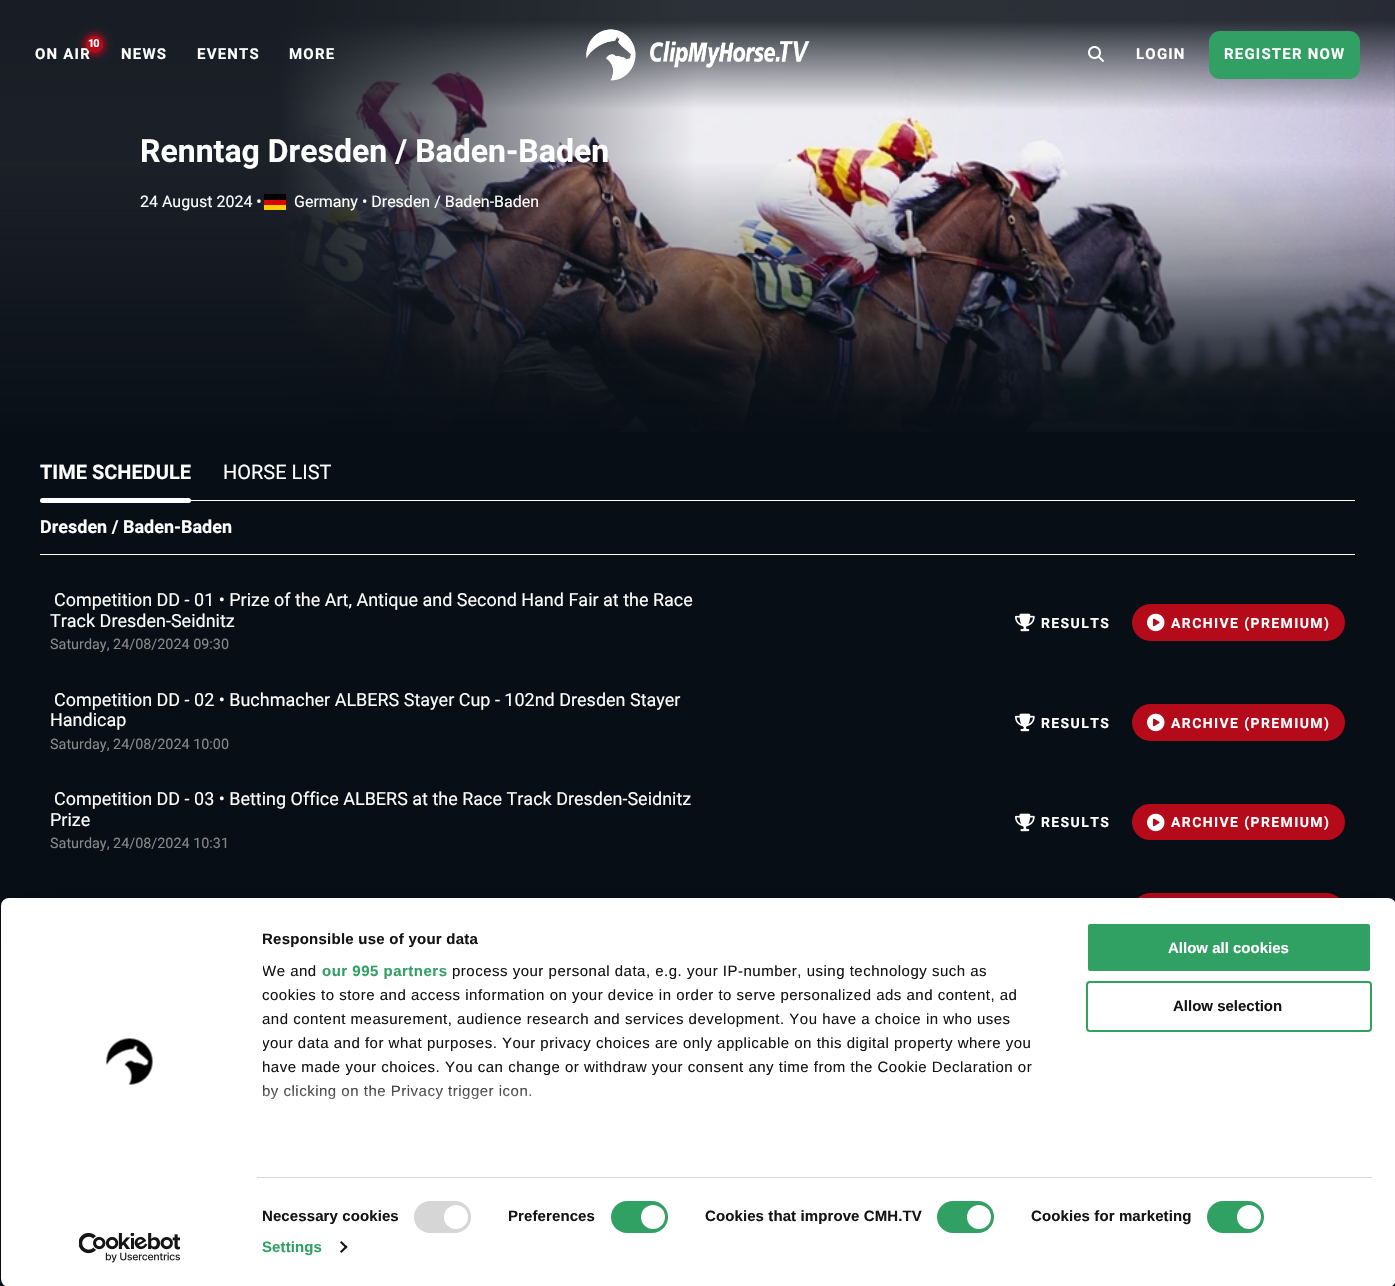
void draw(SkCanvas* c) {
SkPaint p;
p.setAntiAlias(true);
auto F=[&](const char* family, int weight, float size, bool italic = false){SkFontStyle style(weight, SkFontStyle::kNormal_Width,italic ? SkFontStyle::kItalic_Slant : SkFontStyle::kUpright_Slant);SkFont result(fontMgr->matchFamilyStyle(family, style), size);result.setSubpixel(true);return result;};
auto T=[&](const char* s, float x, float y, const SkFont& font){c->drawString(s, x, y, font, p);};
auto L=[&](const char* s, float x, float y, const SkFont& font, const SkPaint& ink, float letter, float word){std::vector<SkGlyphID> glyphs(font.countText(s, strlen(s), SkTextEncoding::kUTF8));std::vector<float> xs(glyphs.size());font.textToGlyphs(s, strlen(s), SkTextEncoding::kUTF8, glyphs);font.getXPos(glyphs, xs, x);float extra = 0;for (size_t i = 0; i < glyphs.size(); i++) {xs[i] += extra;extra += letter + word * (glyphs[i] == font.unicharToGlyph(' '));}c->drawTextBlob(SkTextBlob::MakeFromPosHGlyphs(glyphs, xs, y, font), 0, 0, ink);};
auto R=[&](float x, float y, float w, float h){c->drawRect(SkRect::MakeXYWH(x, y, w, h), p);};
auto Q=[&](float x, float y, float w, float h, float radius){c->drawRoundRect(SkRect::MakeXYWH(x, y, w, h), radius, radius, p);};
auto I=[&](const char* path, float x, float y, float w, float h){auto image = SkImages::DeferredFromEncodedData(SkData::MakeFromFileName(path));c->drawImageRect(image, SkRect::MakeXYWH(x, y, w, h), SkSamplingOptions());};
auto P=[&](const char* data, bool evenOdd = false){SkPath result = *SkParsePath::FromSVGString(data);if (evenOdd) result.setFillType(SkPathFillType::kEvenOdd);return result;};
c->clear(0xff070e16);
I("3.png",0,0,1395,432);
p.setColor(0xbfb40a19);
p.setMaskFilter(SkMaskFilter::MakeBlur(kNormal_SkBlurStyle, 3));
c->drawRoundRect(SkRect::MakeXYWH(83,33,23,23),11.5,11.5,p);
p.setMaskFilter(nullptr);
auto f1 = F("Roboto",700,15);
p.setColor(0xffffffff);
L("ON AIR",35,59,f1,p,1.2,0);
p.setColor(0xffb40a19);
c->drawCircle(94.5,44.5,8.5,p);
auto f2 = F("Roboto",700,11);
p.setColor(0xffffffff);
L("10",88,47,f2,p,-1,0);
L("NEWS",121,59,f1,p,1.2,0);
L("EVENTS",197,59,f1,p,1.2,0);
L("MORE",289,59,f1,p,1.2,0);
I("1.png",586,29,224,52);
I("2.png",1088,46,16,16);
L("LOGIN",1136,59,f1,p,1.2,0);
p.setColor(0xff32a064);
Q(1209,31,151,48,11);
p.setColor(0xffffffff);
L("REGISTER NOW",1224,59,f1,p,1.2,0);
auto f3 = F("Roboto",700,32);
T("Renntag Dresden / Baden-Baden",140,162,f3);
auto f4 = F("Roboto",400,16);
T("24 August 2024 •",140,207,f4);
p.setColor(0xffffce00);
R(264,205,22,5);
p.setColor(0xff000000);
R(264,194,22,6);
p.setColor(0xffdd0000);
R(264,200,22,5);
p.setColor(0xffffffff);
T("Germany • Dresden / Baden-Baden",294,207,f4);
R(40,500,1315,1);
auto f5 = F("Roboto",700,20);
T("TIME SCHEDULE",40,479,f5);
Q(40,498,151,5,2.5);
auto f6 = F("Roboto",400,20);
T("HORSE LIST",223,479,f6);
R(40,554,1315,1);
auto f7 = F("Roboto",700,18);
T("Dresden / Baden-Baden",40,533,f7);
auto f8 = F("Roboto",400,18);
T("Competition DD - 01 • Prize of the Art, Antique and Second Hand Fair at the Race",54,606,f8);
T("Track Dresden-Seidnitz",50,627,f8);
auto f9 = F("Roboto",400,14.4);
p.setColor(0xff87888a);
T("Saturday, 24/08/2024 09:30",50,649,f9);
I("4.png",1015,613,20,19);
auto f10 = F("Roboto",700,14);
p.setColor(0xffffffff);
L("RESULTS",1041,628,f10,p,1.4,0);
p.setColor(0xffb40a19);
Q(1132,604,213,37,18.5);
I("5.png",1147,613,18,19);
p.setColor(0xffffffff);
L("ARCHIVE (PREMIUM)",1171,628,f10,p,1.4,0);
T("Competition DD - 02 • Buchmacher ALBERS Stayer Cup - 102nd Dresden Stayer",54,706,f8);
T("Handicap",50,726,f8);
p.setColor(0xff87888a);
T("Saturday, 24/08/2024 10:00",50,749,f9);
I("4.png",1015,713,20,19);
p.setColor(0xffffffff);
L("RESULTS",1041,728,f10,p,1.4,0);
p.setColor(0xffb40a19);
Q(1132,704,213,37,18.5);
I("5.png",1147,713,18,19);
p.setColor(0xffffffff);
L("ARCHIVE (PREMIUM)",1171,728,f10,p,1.4,0);
T("Competition DD - 03 • Betting Office ALBERS at the Race Track Dresden-Seidnitz",54,805,f8);
T("Prize",50,826,f8);
p.setColor(0xff87888a);
T("Saturday, 24/08/2024 10:31",50,848,f9);
I("4.png",1015,813,20,19);
p.setColor(0xffffffff);
L("RESULTS",1041,827,f10,p,1.4,0);
p.setColor(0xffb40a19);
Q(1132,804,213,36,18);
I("5.png",1147,813,18,19);
p.setColor(0xffffffff);
L("ARCHIVE (PREMIUM)",1171,827,f10,p,1.4,0);
p.setColor(0xffb40a19);
Q(1132,893,213,37,18.5);
p.setColor(0x4d000000);
p.setMaskFilter(SkMaskFilter::MakeBlur(kNormal_SkBlurStyle, 35));
c->drawRoundRect(SkRect::MakeXYWH(1,928,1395,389),8,8,p);
p.setMaskFilter(nullptr);
p.setColor(0xffffffff);
Q(1,898,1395,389,8);
auto f11 = F("Liberation Sans",700,15);
p.setColor(0xff141414);
L("Responsible use of your data",262,944,f11,p,.25,0);
c->save();
c->clipRect(SkRect::MakeXYWH(263,928,794,221));
auto f12 = F("Liberation Sans",400,15);
L("We and",262,976,f12,p,.5,0);
c->restore();
p.setColor(0xff31a063);
L("our 995 partners",322,976,f11,p,.5,0);
p.setColor(0xff141414);
L("process your personal data, e.g. your IP-number, using technology such as",452,976,f12,p,.5,0);
L("cookies to store and access information on your device in order to serve personalized ads and content, ad",262,1000,f12,p,.5,0);
L("and content measurement, audience research and services development. You have a choice in who uses",262,1024,f12,p,.5,0);
c->save();
c->clipRect(SkRect::MakeXYWH(263,928,794,221));
L("your data and for what purposes. Your privacy choices are only applicable on this digital property where you",262,1048,f12,p,.5,0);
c->restore();
L("have made your choices. You can change or withdraw your consent any time from the Cookie Declaration or",262,1072,f12,p,.5,0);
L("by clicking on the Privacy trigger icon.",262,1096,f12,p,.5,0);
{
const SkColor colors[] = {0xffffffff,0xccffffff,0x00ffffff};
const float stops[] = {0,.5,1};
const SkPoint ends[] = {{650,1155}, {650,1080}};
p.setShader(SkGradientShader::MakeLinear(ends, colors, stops, 3, SkTileMode::kClamp));
p.setAlpha(255);
}
R(263,1085,269,15);
p.setShader(nullptr);
p.setColor(0xffd6d6d6);
R(257,1177,1115,1);
p.setColor(0xff141414);
L("Necessary cookies",262,1221,f11,p,.1,0);
p.setColor(0xffd6d6d6);
Q(414,1201,57,32,16);
p.setColor(0xffffffff);
c->drawCircle(456,1217,12,p);
p.setColor(0xff141414);
L("Preferences",508,1221,f11,p,.1,0);
p.setColor(0xff31a063);
Q(611,1201,57,32,16);
p.setColor(0xffffffff);
c->drawCircle(653,1217,12,p);
p.setColor(0xff141414);
L("Cookies that improve CMH.TV",705,1221,f11,p,.1,0);
p.setColor(0xff31a063);
Q(937,1201,57,32,16);
p.setColor(0xffffffff);
c->drawCircle(979,1217,12,p);
p.setColor(0xff141414);
L("Cookies for marketing",1031,1221,f11,p,.1,0);
p.setColor(0xff31a063);
Q(1207,1201,57,32,16);
p.setColor(0xffffffff);
c->drawCircle(1249,1217,12,p);
p.setColor(0xff31a063);
L("Settings",262,1252,f11,p,.1,0);
p.setColor(0xff141414);
c->drawPath(P("M341.5 1241l6 6l-1.5 1.5l-6-6z"),p);
c->drawPath(P("M346 1245.5l1.5 1.5l-6 6l-1.5-1.5z"),p);
p.setColor(0xff31a063);
c->drawRoundRect(SkRect::MakeXYWH(1087,923,284,49),3,3,p);
p.setStroke(true);
p.setStrokeWidth(2);
p.setColor(0xffffffff);
c->drawRoundRect(SkRect::MakeXYWH(1087,923,284,49),3,3,p);
p.setStroke(false);
T("Allow all cookies",1168,953,f11);
p.setStroke(true);
p.setColor(0xff31a063);
c->drawRoundRect(SkRect::MakeXYWH(1087,982,284,49),3,3,p);
p.setStroke(false);
p.setColor(0xff141414);
T("Allow selection",1173,1011,f11);
I("6.png",106,1038,47,47);
I("7.png",79,1233,101,30);
}
